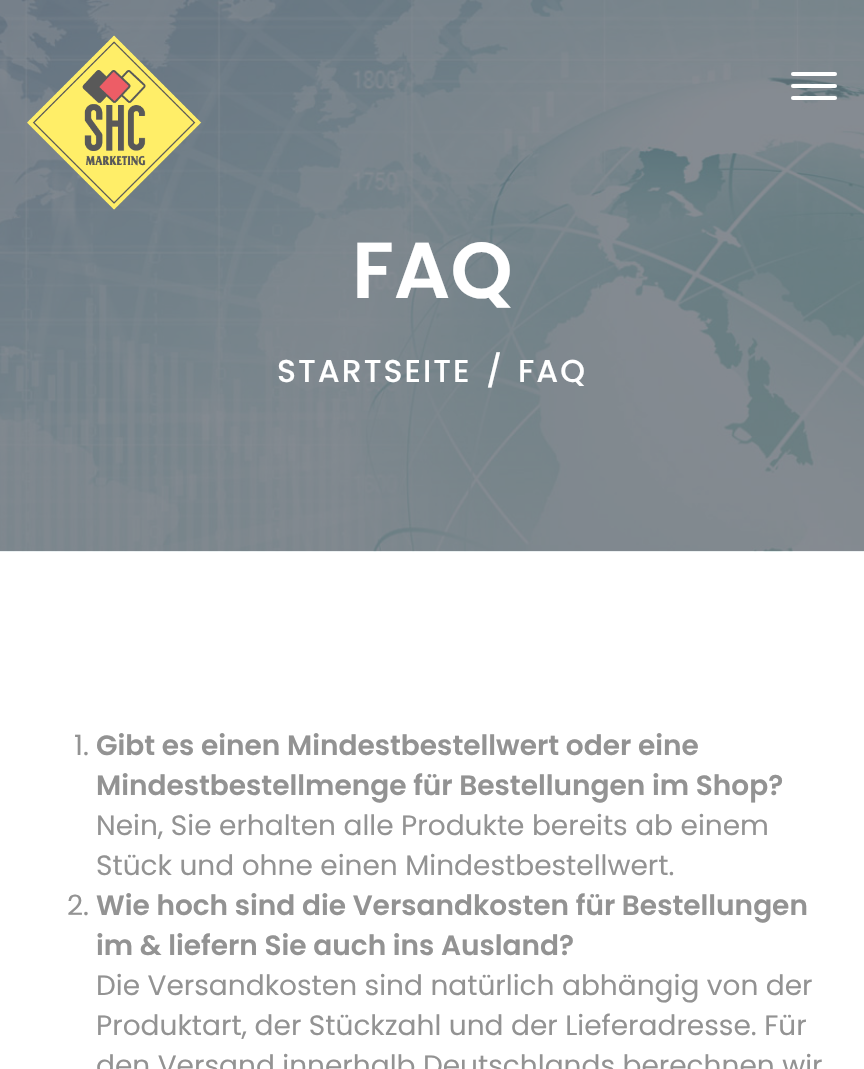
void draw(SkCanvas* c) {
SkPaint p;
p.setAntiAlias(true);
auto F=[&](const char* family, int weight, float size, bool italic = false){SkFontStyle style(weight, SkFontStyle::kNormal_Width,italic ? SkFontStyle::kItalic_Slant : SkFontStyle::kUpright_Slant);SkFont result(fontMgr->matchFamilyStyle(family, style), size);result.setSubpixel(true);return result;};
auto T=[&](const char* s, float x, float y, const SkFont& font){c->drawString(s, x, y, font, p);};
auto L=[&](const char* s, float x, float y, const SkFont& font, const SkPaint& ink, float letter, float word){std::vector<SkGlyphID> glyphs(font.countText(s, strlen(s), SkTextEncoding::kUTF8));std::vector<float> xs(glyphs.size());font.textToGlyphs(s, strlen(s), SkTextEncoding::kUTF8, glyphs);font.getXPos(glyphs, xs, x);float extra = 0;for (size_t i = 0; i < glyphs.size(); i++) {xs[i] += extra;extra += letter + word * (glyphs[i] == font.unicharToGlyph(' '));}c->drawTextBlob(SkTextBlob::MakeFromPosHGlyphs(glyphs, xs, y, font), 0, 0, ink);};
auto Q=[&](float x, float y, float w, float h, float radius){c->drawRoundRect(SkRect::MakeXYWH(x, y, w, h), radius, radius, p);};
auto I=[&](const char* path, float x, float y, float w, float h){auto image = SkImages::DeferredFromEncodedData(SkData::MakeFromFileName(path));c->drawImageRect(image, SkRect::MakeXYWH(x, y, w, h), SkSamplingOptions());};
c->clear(0xffffffff);
I("2.png",0,0,864,552);
I("1.png",27,35,175,175);
p.setColor(0xffffffff);
Q(791,72,46,4,2);
Q(791,84,46,4,2);
Q(791,96,46,4,2);
auto f1 = F("Poppins",600,79);
T("FAQ",352,298,f1);
auto f2 = F("Poppins",500,31.5);
L("STARTSEITE",277,382,f2,p,2,0);
L("/",486,382,f2,p,2,0);
L("FAQ",518,382,f2,p,2,0);
auto f3 = F("Poppins",400,28);
p.setColor(0xff939393);
T("1.",74,755,f3);
auto f4 = F("Poppins",600,28);
T("Gibt es einen Mindestbestellwert oder eine",96,755,f4);
T("Mindestbestellmenge für Bestellungen im Shop?",96,795,f4);
T("Nein, Sie erhalten alle Produkte bereits ab einem",96,835,f3);
T("Stück und ohne einen Mindestbestellwert.",96,875,f3);
T("2.",67,915,f3);
T("Wie hoch sind die Versandkosten für Bestellungen",96,915,f4);
T("im & liefern Sie auch ins Ausland?",96,955,f4);
T("Die Versandkosten sind natürlich abhängig von der",96,995,f3);
T("Produktart, der Stückzahl und der Lieferadresse. Für",96,1035,f3);
T("den Versand innerhalb Deutschlands berechnen wir",96,1075,f3);
}
